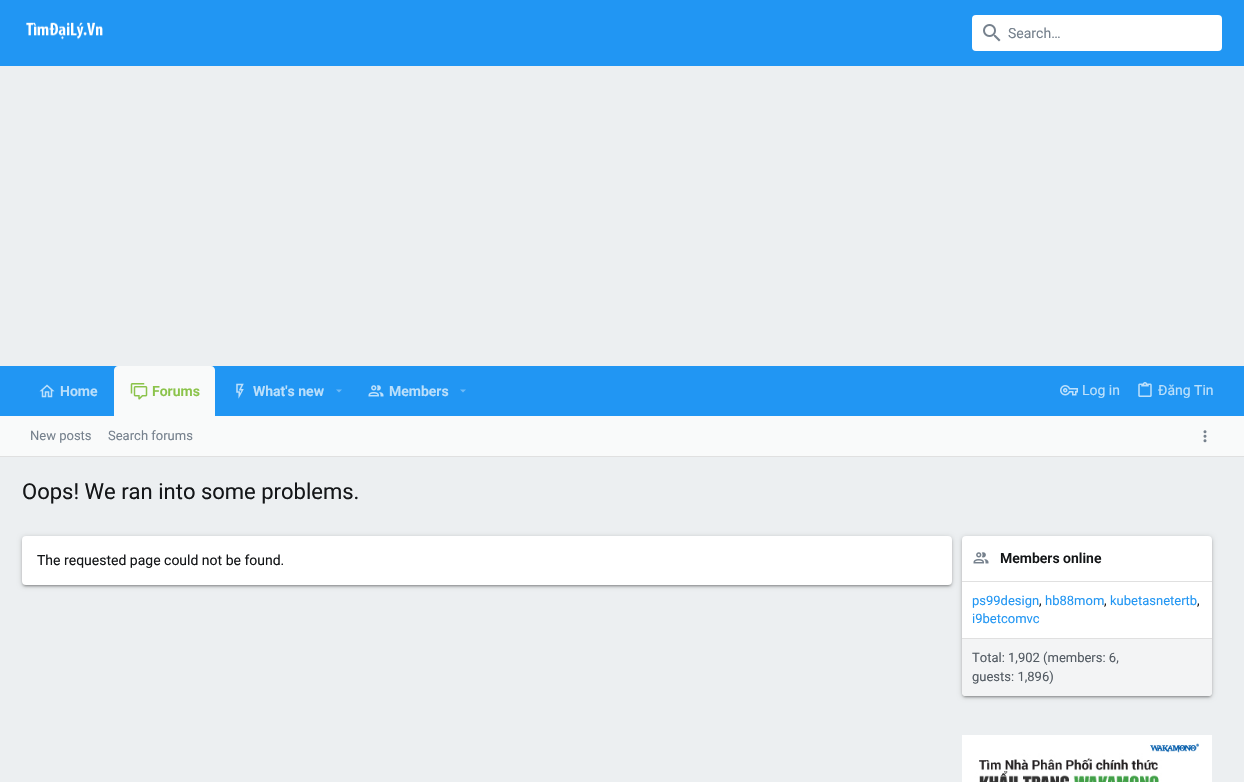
void draw(SkCanvas* c) {
SkPaint p;
p.setAntiAlias(true);
auto F=[&](const char* family, int weight, float size, bool italic = false){SkFontStyle style(weight, SkFontStyle::kNormal_Width,italic ? SkFontStyle::kItalic_Slant : SkFontStyle::kUpright_Slant);SkFont result(fontMgr->matchFamilyStyle(family, style), size);result.setSubpixel(true);return result;};
auto T=[&](const char* s, float x, float y, const SkFont& font){c->drawString(s, x, y, font, p);};
auto R=[&](float x, float y, float w, float h){c->drawRect(SkRect::MakeXYWH(x, y, w, h), p);};
auto Q=[&](float x, float y, float w, float h, float radius){c->drawRoundRect(SkRect::MakeXYWH(x, y, w, h), radius, radius, p);};
auto I=[&](const char* path, float x, float y, float w, float h){auto image = SkImages::DeferredFromEncodedData(SkData::MakeFromFileName(path));c->drawImageRect(image, SkRect::MakeXYWH(x, y, w, h), SkSamplingOptions());};
auto P=[&](const char* data, bool evenOdd = false){SkPath result = *SkParsePath::FromSVGString(data);if (evenOdd) result.setFillType(SkPathFillType::kEvenOdd);return result;};
c->clear(0xffeceff1);
p.setColor(0xff2196f3);
R(0,0,1244,66);
I("1.png",26,22,77,18);
p.setColor(0xffffffff);
Q(972,15,250,36,4);
I("2.png",983,24,18,18);
auto f1 = F("Roboto",400,14);
p.setColor(0xff76818d);
T("Search…",1008,38,f1);
p.setColor(0xff2196f3);
R(0,366,1244,50);
I("3.png",39,384,16,14);
auto f2 = F("Roboto",600,14);
p.setColor(0xffbce0fb);
T("Home",60,396,f2);
p.setColor(0xfff9fafa);
c->drawPath(P("M118 366h93c2 0 4 2 4 4v46h-101v-46c0-2 2-4 4-4z"),p);
I("4.png",130,383,18,17);
p.setColor(0xff8bc34a);
T("Forums",152,396,f2);
I("5.png",236,383,8,16);
p.setColor(0xffbce0fb);
T("What's new",253,396,f2);
p.setColor(0xff6fbbf7);
c->drawPath(P("M336 389.5l3 3l3-3z"),p);
I("6.png",368,385,16,12);
p.setColor(0xffbce0fb);
T("Members",389,396,f2);
p.setColor(0xff6fbbf7);
c->drawPath(P("M460 389.5l3 3l3-3z"),p);
I("7.png",1060,385,18,11);
p.setColor(0xffbce0fb);
T("Log in",1082,395,f1);
I("8.png",1138,382,14,15);
T("Đăng Tin",1158,395,f1);
p.setColor(0xfff9fafa);
R(0,416,1244,40);
p.setColor(0xffe0e0e0);
R(0,456,1244,1);
auto f3 = F("Roboto",400,13);
p.setColor(0xff76818d);
T("New posts",30,440,f3);
T("Search forums",108,440,f3);
I("9.png",1203,430,4,13);
auto f4 = F("Roboto",400,22);
p.setColor(0xff141618);
T("Oops! We ran into some problems.",22,499,f4);
p.setColor(0x33000000);
p.setMaskFilter(SkMaskFilter::MakeBlur(kNormal_SkBlurStyle, 2.5));
c->drawRoundRect(SkRect::MakeXYWH(22,537,930,49),4,4,p);
p.setMaskFilter(nullptr);
p.setColor(0x1f000000);
p.setMaskFilter(SkMaskFilter::MakeBlur(kNormal_SkBlurStyle, .5));
c->drawRoundRect(SkRect::MakeXYWH(24,541,926,45),2,2,p);
p.setMaskFilter(nullptr);
p.setColor(0x24000000);
p.setMaskFilter(SkMaskFilter::MakeBlur(kNormal_SkBlurStyle, 1));
c->drawRoundRect(SkRect::MakeXYWH(22,538,930,49),4,4,p);
p.setMaskFilter(nullptr);
p.setColor(0xffffffff);
Q(22,536,930,49,4);
p.setColor(0xff141618);
T("The requested page could not be found.",37,565,f1);
p.setColor(0x33000000);
p.setMaskFilter(SkMaskFilter::MakeBlur(kNormal_SkBlurStyle, 2.5));
c->drawRoundRect(SkRect::MakeXYWH(962,537,250,160),4,4,p);
p.setMaskFilter(nullptr);
p.setColor(0x1f000000);
p.setMaskFilter(SkMaskFilter::MakeBlur(kNormal_SkBlurStyle, .5));
c->drawRoundRect(SkRect::MakeXYWH(964,541,246,156),2,2,p);
p.setMaskFilter(nullptr);
p.setColor(0x24000000);
p.setMaskFilter(SkMaskFilter::MakeBlur(kNormal_SkBlurStyle, 1));
c->drawRoundRect(SkRect::MakeXYWH(962,538,250,160),4,4,p);
p.setMaskFilter(nullptr);
p.setColor(0xffffffff);
Q(962,536,250,160,4);
p.setColor(0xffe0e0e0);
R(962,581,250,1);
I("10.png",973,552,16,12);
p.setColor(0xff141618);
T("Members online",1000,563,f2);
p.setColor(0xff2196f3);
T("ps99design",972,605,f3);
p.setColor(0xff141618);
T(",",1039,605,f3);
p.setColor(0xff2196f3);
T("hb88mom",1045,605,f3);
p.setColor(0xff141618);
T(",",1104,605,f3);
p.setColor(0xff2196f3);
T("kubetasnetertb",1110,605,f3);
p.setColor(0xff141618);
T(",",1197,605,f3);
p.setColor(0xff2196f3);
T("i9betcomvc",972,623,f3);
p.setColor(0xfff3f4f5);
c->drawPath(P("M962 638h250v55c0 1.5-1.5 3-3 3h-244c-1.5 0-3-1.5-3-3z"),p);
p.setColor(0xffe0e0e0);
R(962,638,250,1);
p.setColor(0xff535b63);
T("Total: 1,902 (members: 6,",972,662,f3);
T("guests: 1,896)",972,681,f3);
I("11.png",962,735,250,47);
}
